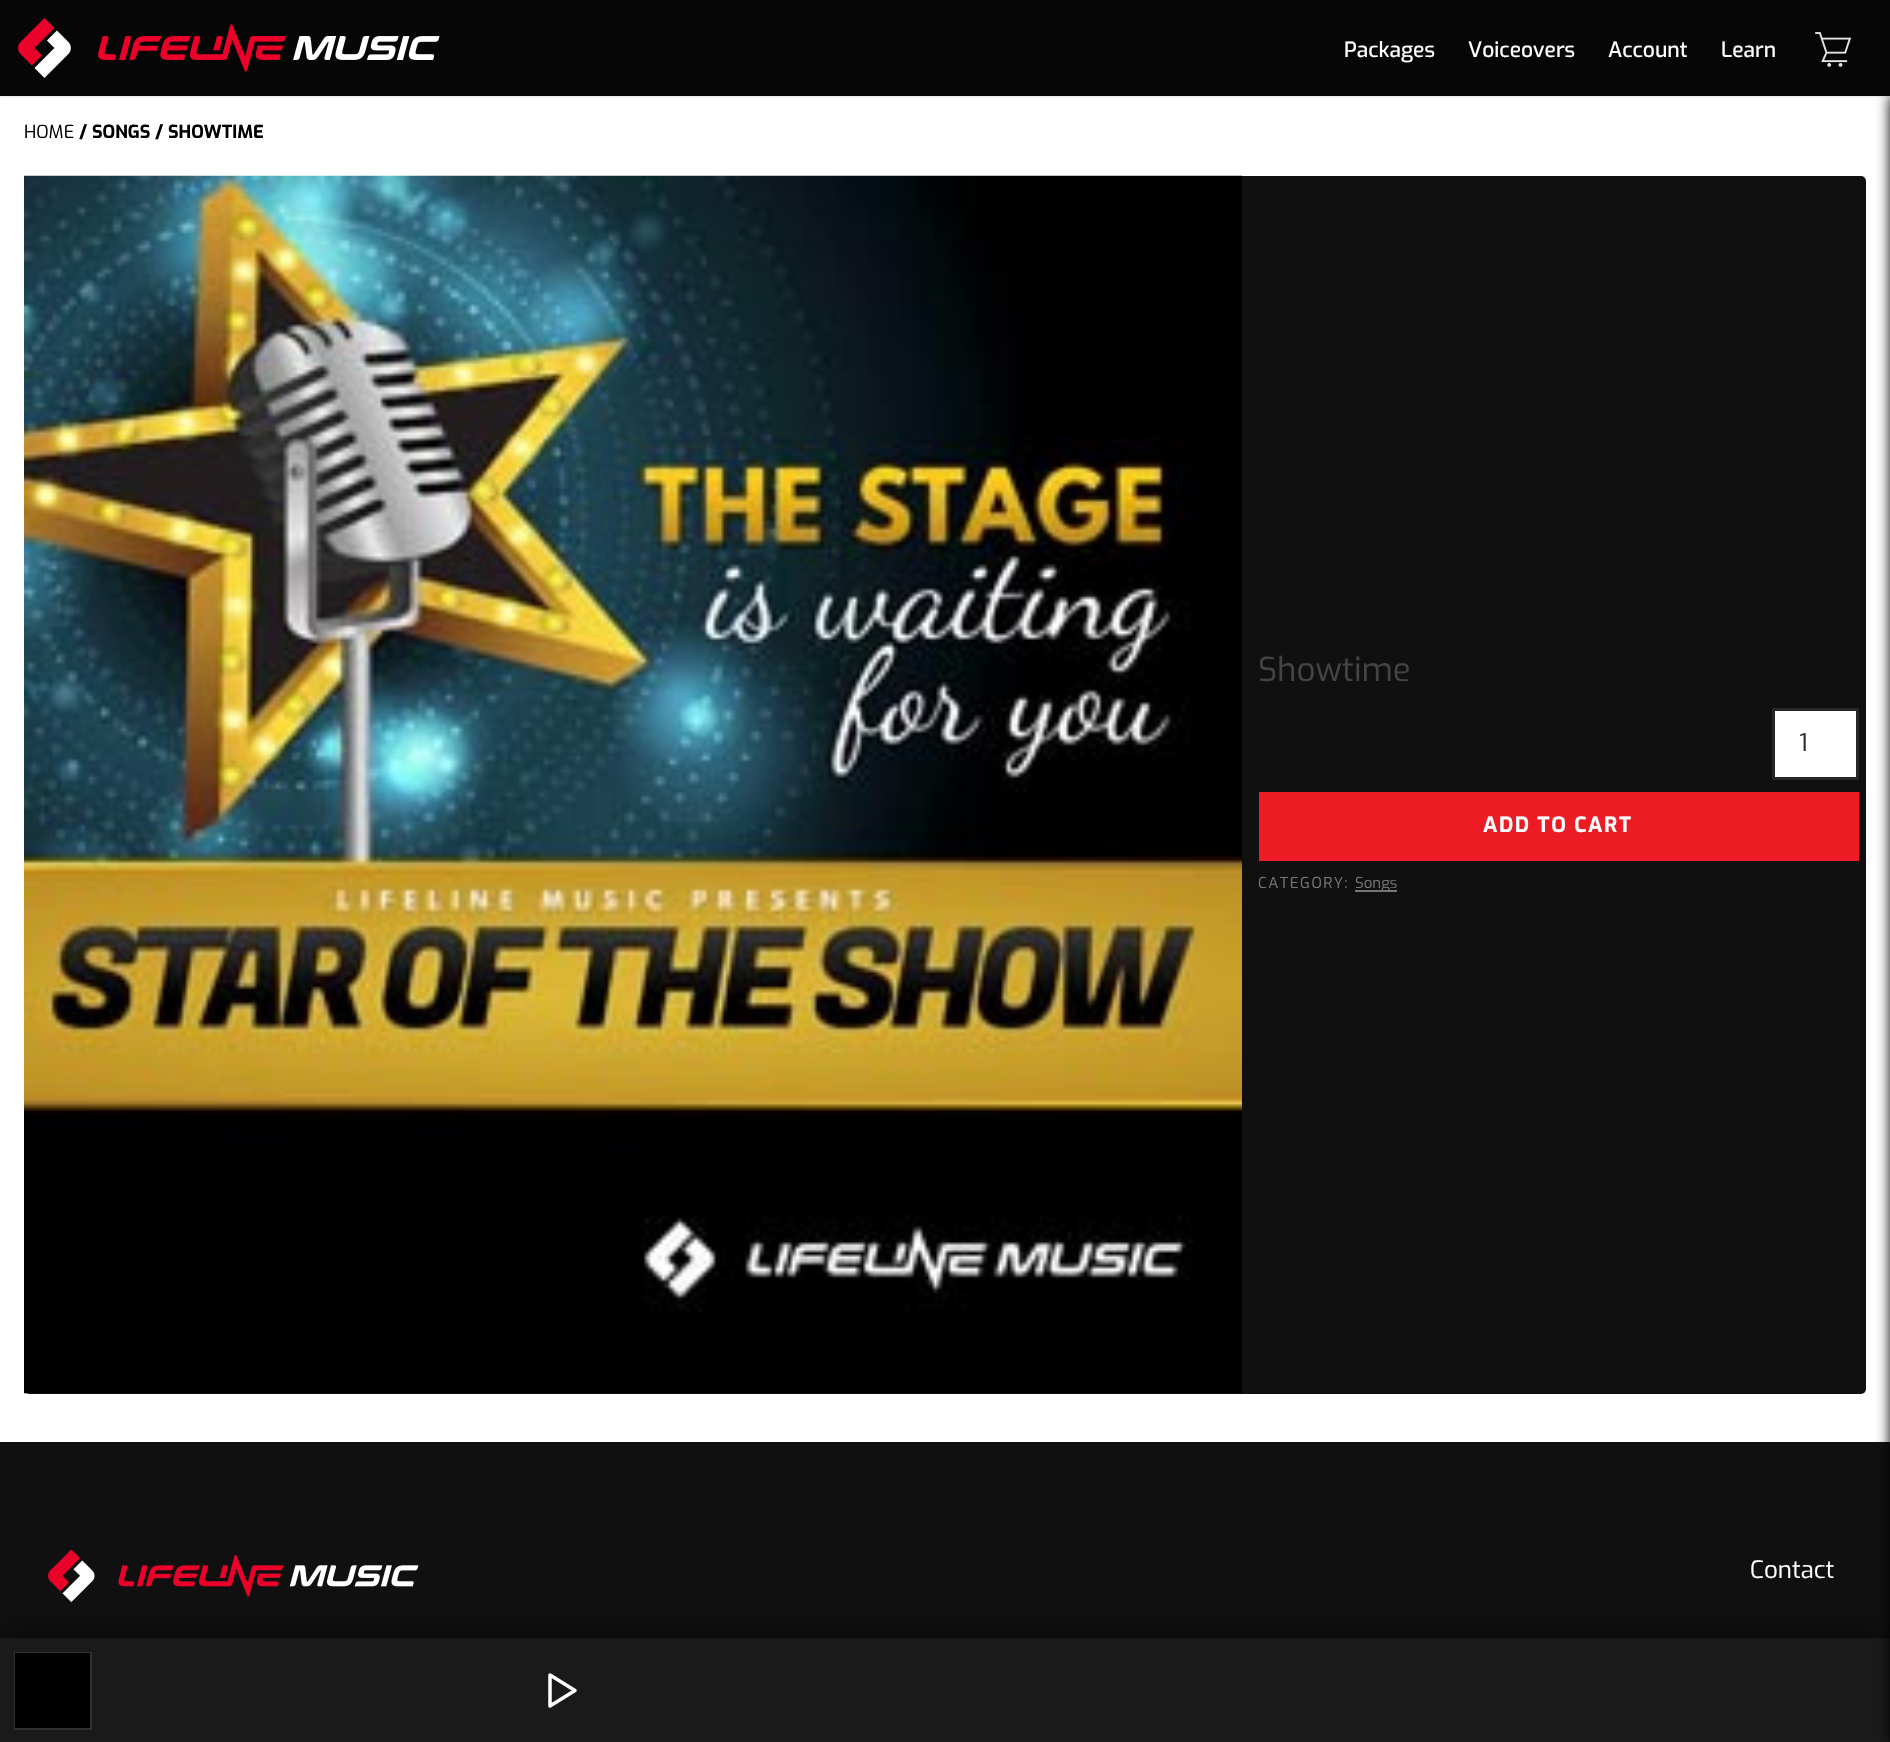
void draw(SkCanvas* c) {
SkPaint p;
p.setAntiAlias(true);
auto F=[&](const char* family, int weight, float size, bool italic = false){SkFontStyle style(weight, SkFontStyle::kNormal_Width,italic ? SkFontStyle::kItalic_Slant : SkFontStyle::kUpright_Slant);SkFont result(fontMgr->matchFamilyStyle(family, style), size);result.setSubpixel(true);return result;};
auto T=[&](const char* s, float x, float y, const SkFont& font){c->drawString(s, x, y, font, p);};
auto L=[&](const char* s, float x, float y, const SkFont& font, const SkPaint& ink, float letter, float word){std::vector<SkGlyphID> glyphs(font.countText(s, strlen(s), SkTextEncoding::kUTF8));std::vector<float> xs(glyphs.size());font.textToGlyphs(s, strlen(s), SkTextEncoding::kUTF8, glyphs);font.getXPos(glyphs, xs, x);float extra = 0;for (size_t i = 0; i < glyphs.size(); i++) {xs[i] += extra;extra += letter + word * (glyphs[i] == font.unicharToGlyph(' '));}c->drawTextBlob(SkTextBlob::MakeFromPosHGlyphs(glyphs, xs, y, font), 0, 0, ink);};
auto R=[&](float x, float y, float w, float h){c->drawRect(SkRect::MakeXYWH(x, y, w, h), p);};
auto Q=[&](float x, float y, float w, float h, float radius){c->drawRoundRect(SkRect::MakeXYWH(x, y, w, h), radius, radius, p);};
auto I=[&](const char* path, float x, float y, float w, float h){auto image = SkImages::DeferredFromEncodedData(SkData::MakeFromFileName(path));c->drawImageRect(image, SkRect::MakeXYWH(x, y, w, h), SkSamplingOptions());};
auto P=[&](const char* data, bool evenOdd = false){SkPath result = *SkParsePath::FromSVGString(data);if (evenOdd) result.setFillType(SkPathFillType::kEvenOdd);return result;};
c->clear(0xff101010);
p.setColor(0xffffffff);
R(0,96,1890,1346);
p.setColor(0x33000000);
p.setMaskFilter(SkMaskFilter::MakeBlur(kNormal_SkBlurStyle, 1.5));
c->drawRect(SkRect::MakeXYWH(0,0,1890,96),p);
p.setMaskFilter(nullptr);
p.setColor(0xff060606);
R(0,0,1890,96);
I("1.png",18,18,422,60);
auto f1 = F("Exo",500,21);
p.setColor(0xffffffff);
T("Packages",1344,57,f1);
T("Voiceovers",1468,57,f1);
T("Account",1608,57,f1);
T("Learn",1721,57,f1);
I("2.png",1815,32,37,35);
I("4.png",48,1550,371,52);
p.setColor(0xb3000000);
p.setMaskFilter(SkMaskFilter::MakeBlur(kNormal_SkBlurStyle, 12));
c->drawRect(SkRect::MakeXYWH(0,1638,1890,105),p);
p.setMaskFilter(nullptr);
p.setColor(0xff1a1a1a);
R(0,1638,1890,104);
p.setColor(0xff000000);
p.setMaskFilter(SkMaskFilter::MakeBlur(kNormal_SkBlurStyle, 7));
c->drawRect(SkRect::MakeXYWH(1890,96,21,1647),p);
p.setMaskFilter(nullptr);
auto f2 = F("Exo",400,18);
T("HOME",24,138,f2);
auto f3 = F("Exo",700,18);
T("/ SONGS / SHOWTIME",79,138,f3);
p.setColor(0xff101010);
Q(24,176,1842,1218,5);
I("3.png",24,175,1218,1219);
auto f4 = F("Exo",400,33);
p.setColor(0xff444444);
T("Showtime",1258,681,f4);
p.setColor(0xffffffff);
c->drawRect(SkRect::MakeXYWH(1773.5,709.5,84,69),p);
p.setStroke(true);
p.setStrokeWidth(3);
p.setColor(0xff272727);
c->drawRect(SkRect::MakeXYWH(1773.5,709.5,84,69),p);
auto f5 = F("Exo",400,24);
p.setStroke(false);
T("1",1799,751,f5);
p.setColor(0xffed1c24);
R(1259,792,600,69);
auto f6 = F("Exo",700,21);
p.setColor(0xffffffff);
L("ADD TO CART",1483,832,f6,p,1.5,0);
auto f7 = F("Exo",400,15);
p.setColor(0xff757679);
L("CATEGORY:",1258,888,f7,p,1.5,0);
R(1355,890,42,2);
T("Songs",1355,888,f7);
p.setColor(0xffffffff);
T("Contact",1750,1578,f5);
p.setStroke(true);
p.setStrokeWidth(2);
p.setColor(0xff313131);
c->drawRect(SkRect::MakeXYWH(15,1653,76,76),p);
p.setStroke(false);
p.setColor(0xff000000);
R(15,1653,75,75);
p.setStroke(true);
p.setStrokeWidth(3.5);
p.setStrokeCap(SkPaint::kRound_Cap);
p.setStrokeJoin(SkPaint::kRound_Join);
p.setColor(0xffffffff);
c->drawPath(P("M550 1675l25 15.5l-25 15.5z"),p);
}
